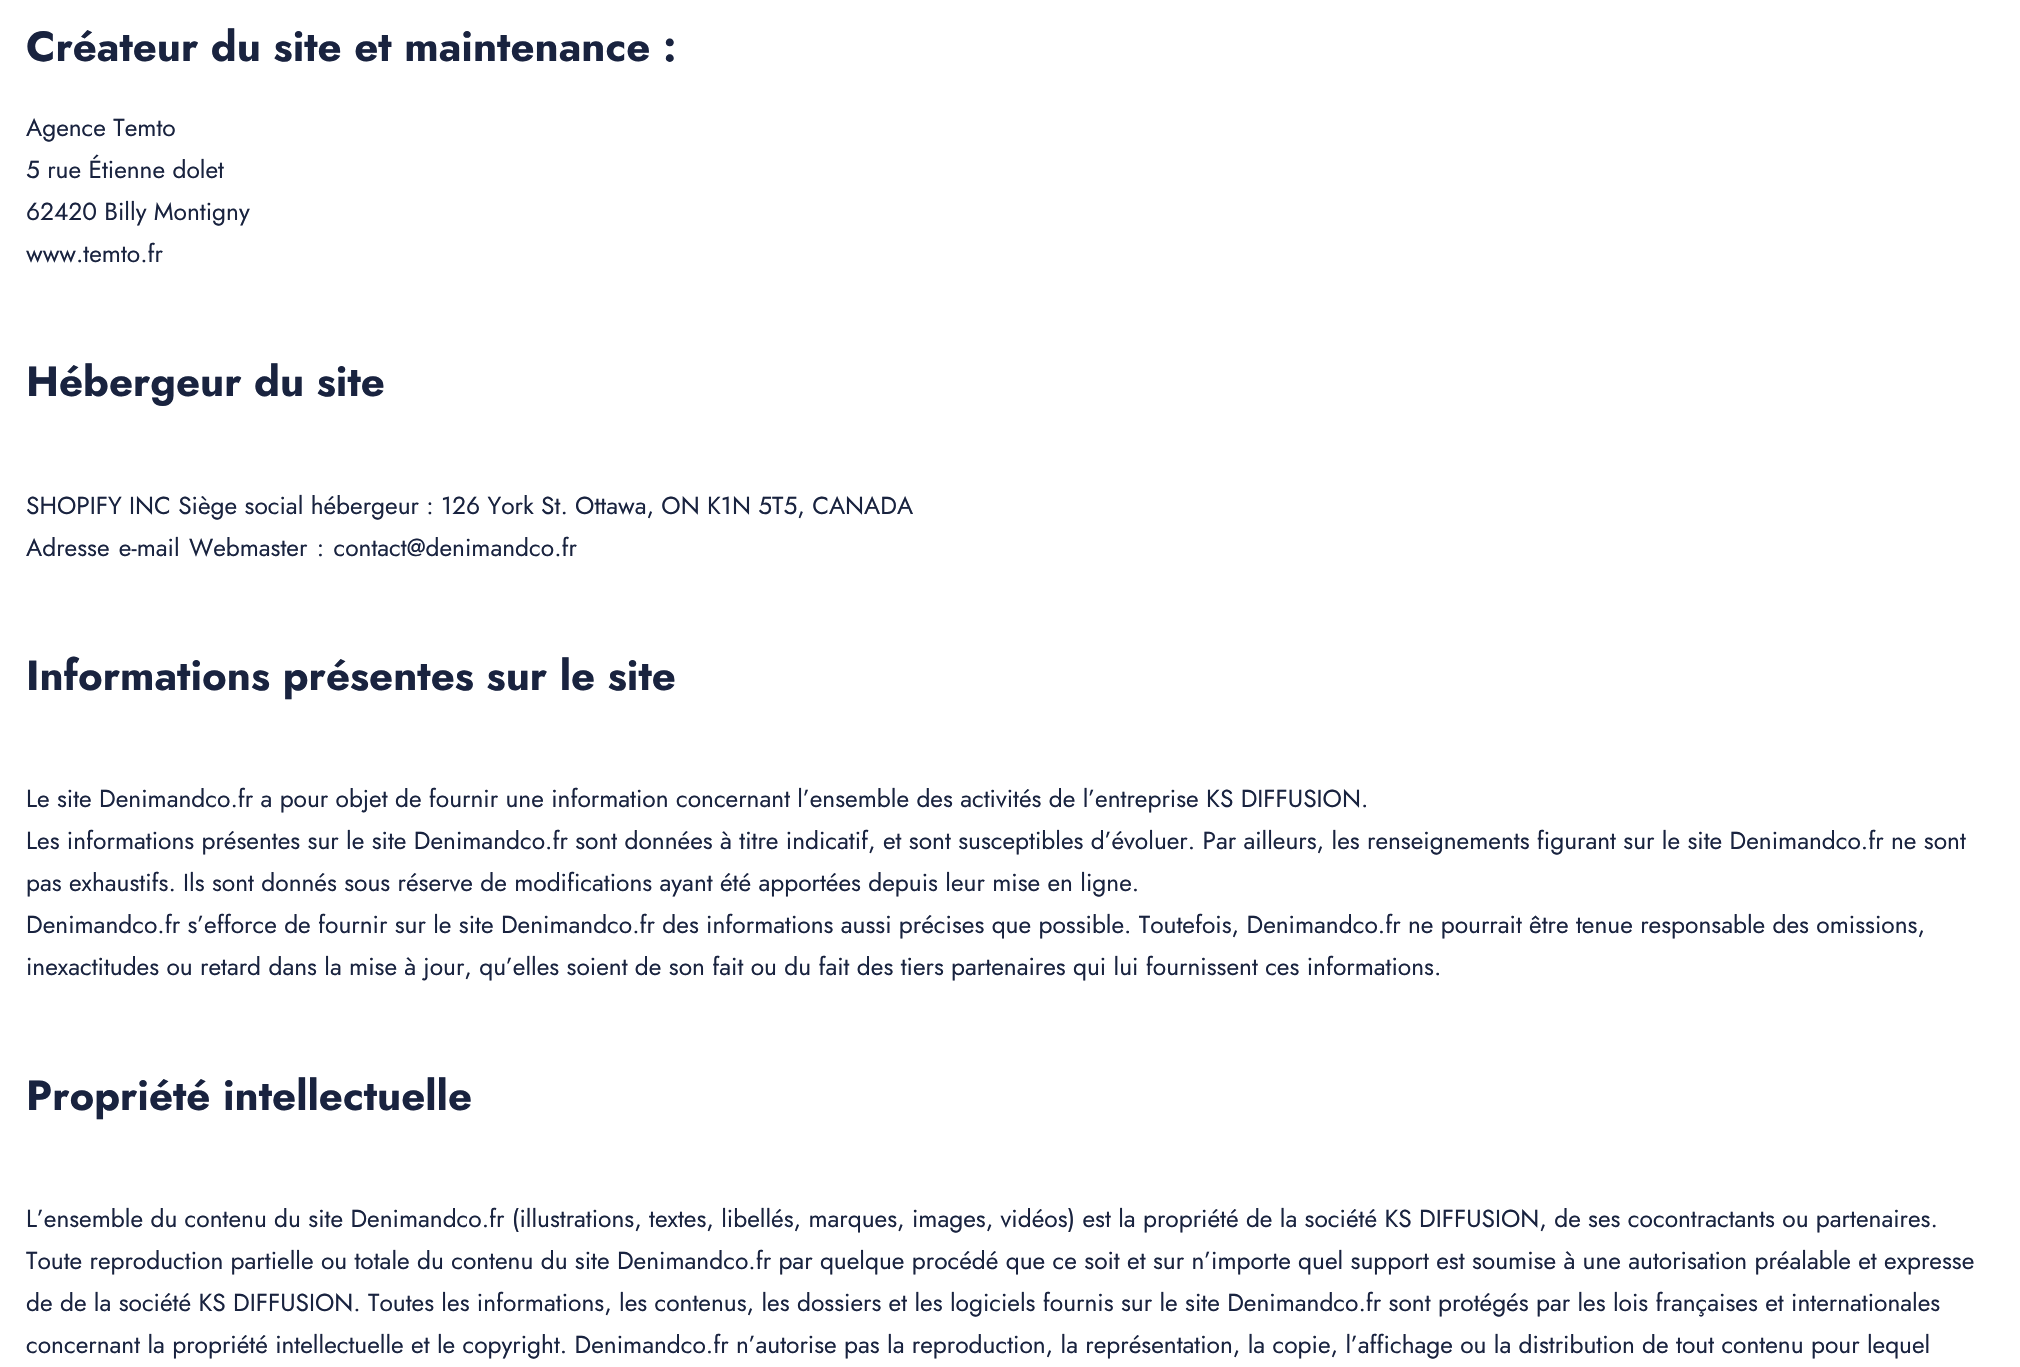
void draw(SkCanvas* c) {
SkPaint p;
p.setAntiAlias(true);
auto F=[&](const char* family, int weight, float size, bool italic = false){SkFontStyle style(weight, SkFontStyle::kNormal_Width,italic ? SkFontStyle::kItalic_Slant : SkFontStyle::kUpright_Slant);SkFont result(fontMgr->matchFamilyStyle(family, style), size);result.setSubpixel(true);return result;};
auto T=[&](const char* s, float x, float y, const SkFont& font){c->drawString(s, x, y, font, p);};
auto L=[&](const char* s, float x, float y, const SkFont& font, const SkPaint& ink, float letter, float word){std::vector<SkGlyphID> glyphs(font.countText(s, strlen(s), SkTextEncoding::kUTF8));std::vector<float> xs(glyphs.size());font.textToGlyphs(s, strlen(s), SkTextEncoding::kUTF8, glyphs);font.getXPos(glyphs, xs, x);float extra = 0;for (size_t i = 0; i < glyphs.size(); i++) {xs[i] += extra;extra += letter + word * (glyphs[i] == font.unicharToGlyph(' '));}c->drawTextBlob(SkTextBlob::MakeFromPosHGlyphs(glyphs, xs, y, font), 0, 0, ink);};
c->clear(0xffffffff);
auto f1 = F("Jost",700,42);
p.setColor(0xff19233f);
T("Créateur du site et maintenance :",26,61,f1);
auto f2 = F("Jost",400,24.5);
T("Agence Temto",26,136,f2);
T("5 rue Étienne dolet",26,178,f2);
T("62420 Billy Montigny",26,220,f2);
T("www.temto.fr",26,262,f2);
T("Hébergeur du site",26,396,f1);
T("SHOPIFY INC Siège social hébergeur : 126 York St. Ottawa, ON K1N 5T5, CANADA",26,514,f2);
L("Adresse e-mail Webmaster : contact@denimandco.fr",26,556,f2,p,0,2);
T("Informations présentes sur le site",26,690,f1);
T("Le site Denimandco.fr a pour objet de fournir une information concernant l’ensemble des activités de l’entreprise KS DIFFUSION.",26,807,f2);
T("Les informations présentes sur le site Denimandco.fr sont données à titre indicatif, et sont susceptibles d’évoluer. Par ailleurs, les renseignements figurant sur le site Denimandco.fr ne sont",26,849,f2);
T("pas exhaustifs. Ils sont donnés sous réserve de modifications ayant été apportées depuis leur mise en ligne.",26,891,f2);
T("Denimandco.fr s’efforce de fournir sur le site Denimandco.fr des informations aussi précises que possible. Toutefois, Denimandco.fr ne pourrait être tenue responsable des omissions,",26,933,f2);
T("inexactitudes ou retard dans la mise à jour, qu’elles soient de son fait ou du fait des tiers partenaires qui lui fournissent ces informations.",26,975,f2);
T("Propriété intellectuelle",26,1110,f1);
T("L’ensemble du contenu du site Denimandco.fr (illustrations, textes, libellés, marques, images, vidéos) est la propriété de la société KS DIFFUSION, de ses cocontractants ou partenaires.",26,1227,f2);
T("Toute reproduction partielle ou totale du contenu du site Denimandco.fr par quelque procédé que ce soit et sur n’importe quel support est soumise à une autorisation préalable et expresse",26,1269,f2);
T("de de la société KS DIFFUSION. Toutes les informations, les contenus, les dossiers et les logiciels fournis sur le site Denimandco.fr sont protégés par les lois françaises et internationales",26,1311,f2);
T("concernant la propriété intellectuelle et le copyright. Denimandco.fr n’autorise pas la reproduction, la représentation, la copie, l’affichage ou la distribution de tout contenu pour lequel",26,1353,f2);
}
